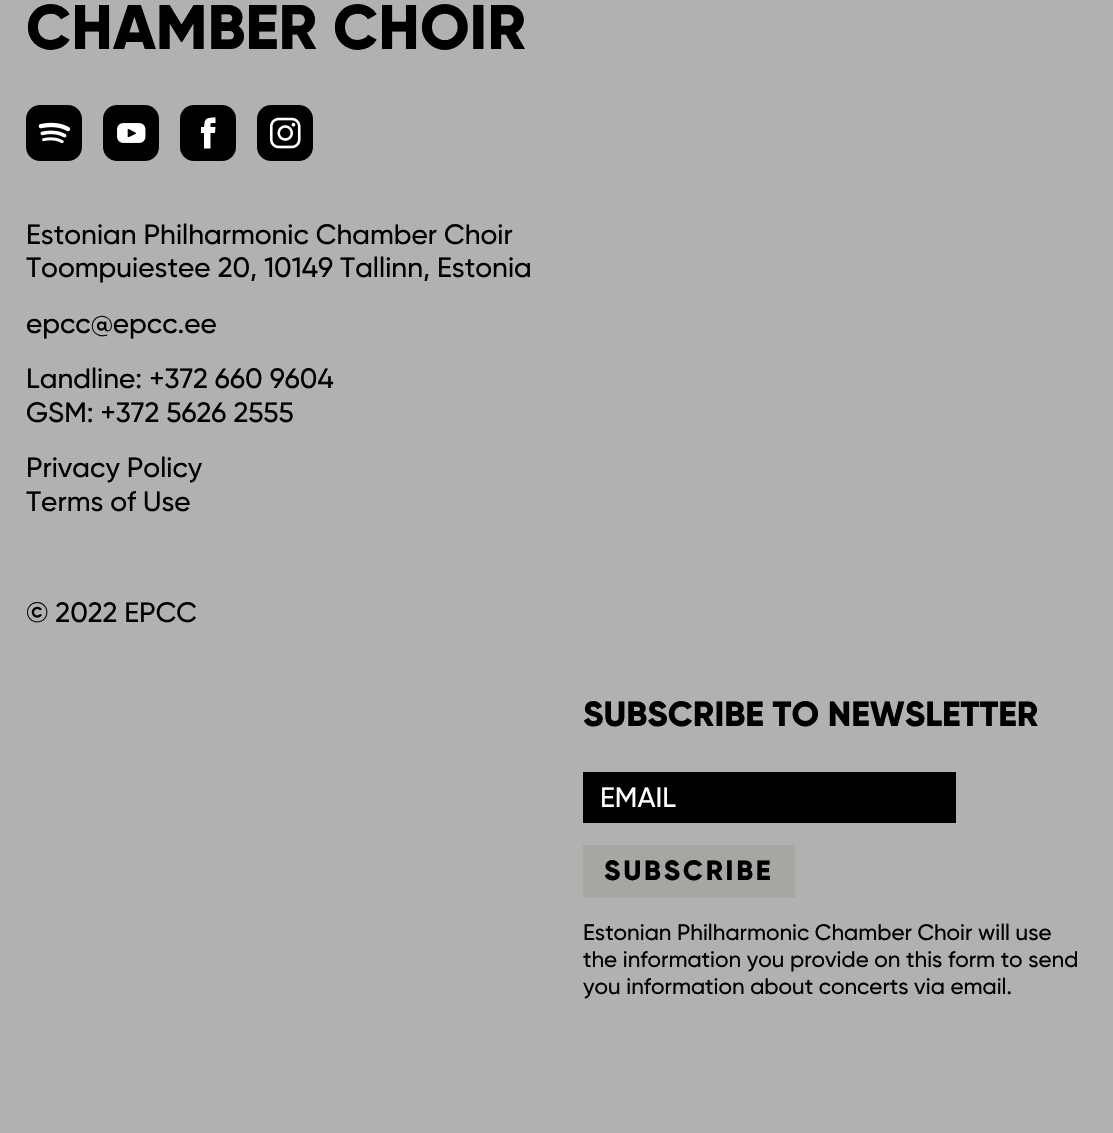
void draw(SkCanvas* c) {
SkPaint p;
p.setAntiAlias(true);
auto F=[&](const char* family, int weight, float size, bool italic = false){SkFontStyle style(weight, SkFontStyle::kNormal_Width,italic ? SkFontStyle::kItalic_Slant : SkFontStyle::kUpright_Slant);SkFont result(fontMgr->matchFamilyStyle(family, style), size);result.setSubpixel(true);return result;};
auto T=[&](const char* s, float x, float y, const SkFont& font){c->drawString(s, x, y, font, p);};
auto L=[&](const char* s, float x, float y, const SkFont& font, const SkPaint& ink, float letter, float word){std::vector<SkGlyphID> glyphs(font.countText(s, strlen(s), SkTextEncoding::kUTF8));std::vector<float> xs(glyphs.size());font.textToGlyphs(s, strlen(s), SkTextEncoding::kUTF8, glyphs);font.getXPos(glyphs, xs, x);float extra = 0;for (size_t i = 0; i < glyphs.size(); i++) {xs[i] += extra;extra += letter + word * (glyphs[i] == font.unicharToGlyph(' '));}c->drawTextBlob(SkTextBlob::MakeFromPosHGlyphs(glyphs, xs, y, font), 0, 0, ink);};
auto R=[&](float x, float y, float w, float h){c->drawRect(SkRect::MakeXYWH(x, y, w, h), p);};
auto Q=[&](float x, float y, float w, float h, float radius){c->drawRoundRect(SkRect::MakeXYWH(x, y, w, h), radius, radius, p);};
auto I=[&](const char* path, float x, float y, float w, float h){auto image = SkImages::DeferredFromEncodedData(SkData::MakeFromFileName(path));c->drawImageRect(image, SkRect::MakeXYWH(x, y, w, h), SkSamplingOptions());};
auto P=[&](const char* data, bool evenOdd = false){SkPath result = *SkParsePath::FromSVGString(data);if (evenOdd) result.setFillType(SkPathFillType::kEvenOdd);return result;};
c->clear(0xffb1b1b1);
auto f1 = F("Gilroy",800,63);
p.setColor(0xff000000);
T("CHAMBER CHOIR",26,49,f1);
I("1.png",26,105,56,56);
I("2.png",103,105,56,56);
p.setColor(0xff000003);
Q(180,105,56,56,14);
p.setColor(0xffffffff);
c->drawPath(P("M210.5 127c0-5 0-4 5-4v-5.5c-4.5 0-10.5-.5-11 5.5l-.5 4h-3v6h3v15.5h6.5v-15.5h4.5l.5-6z",true),p);
I("3.png",257,105,56,56);
auto f2 = F("Gilroy",500,28);
p.setColor(0xff000000);
T("Estonian Philharmonic Chamber Choir",26,244,f2);
T("Toompuiestee 20, 10149 Tallinn, Estonia",26,277,f2);
T("epcc@epcc.ee",26,333,f2);
T("Landline: +372 660 9604",26,388,f2);
T("GSM: +372 5626 2555",26,422,f2);
T("Privacy Policy",26,477,f2);
T("Terms of Use",26,511,f2);
T("© 2022 EPCC",26,622,f2);
auto f3 = F("Gilroy",800,35);
T("SUBSCRIBE TO NEWSLETTER",583,726,f3);
R(583,772,373,51);
p.setColor(0xffffffff);
T("EMAIL",600,807,f2);
p.setColor(0xffa7a6a2);
R(583,845,212,53);
auto f4 = F("Gilroy",800,28);
p.setColor(0xff000000);
L("SUBSCRIBE",604,880,f4,p,2.75,0);
auto f5 = F("Gilroy",500,22.4);
T("Estonian Philharmonic Chamber Choir will use",583,940,f5);
T("the information you provide on this form to send",583,967,f5);
T("you information about concerts via email.",583,994,f5);
}
